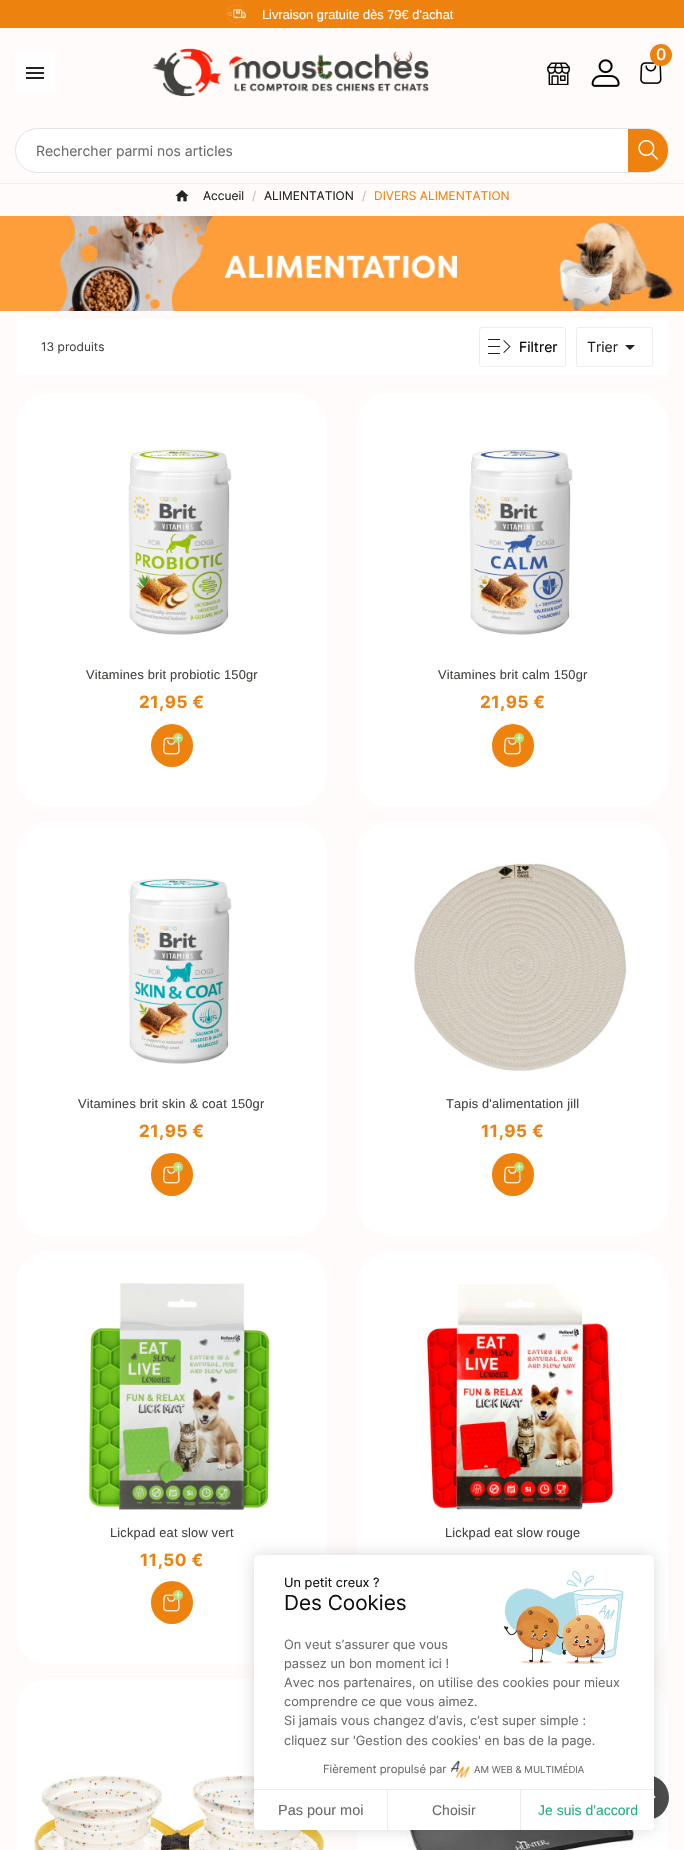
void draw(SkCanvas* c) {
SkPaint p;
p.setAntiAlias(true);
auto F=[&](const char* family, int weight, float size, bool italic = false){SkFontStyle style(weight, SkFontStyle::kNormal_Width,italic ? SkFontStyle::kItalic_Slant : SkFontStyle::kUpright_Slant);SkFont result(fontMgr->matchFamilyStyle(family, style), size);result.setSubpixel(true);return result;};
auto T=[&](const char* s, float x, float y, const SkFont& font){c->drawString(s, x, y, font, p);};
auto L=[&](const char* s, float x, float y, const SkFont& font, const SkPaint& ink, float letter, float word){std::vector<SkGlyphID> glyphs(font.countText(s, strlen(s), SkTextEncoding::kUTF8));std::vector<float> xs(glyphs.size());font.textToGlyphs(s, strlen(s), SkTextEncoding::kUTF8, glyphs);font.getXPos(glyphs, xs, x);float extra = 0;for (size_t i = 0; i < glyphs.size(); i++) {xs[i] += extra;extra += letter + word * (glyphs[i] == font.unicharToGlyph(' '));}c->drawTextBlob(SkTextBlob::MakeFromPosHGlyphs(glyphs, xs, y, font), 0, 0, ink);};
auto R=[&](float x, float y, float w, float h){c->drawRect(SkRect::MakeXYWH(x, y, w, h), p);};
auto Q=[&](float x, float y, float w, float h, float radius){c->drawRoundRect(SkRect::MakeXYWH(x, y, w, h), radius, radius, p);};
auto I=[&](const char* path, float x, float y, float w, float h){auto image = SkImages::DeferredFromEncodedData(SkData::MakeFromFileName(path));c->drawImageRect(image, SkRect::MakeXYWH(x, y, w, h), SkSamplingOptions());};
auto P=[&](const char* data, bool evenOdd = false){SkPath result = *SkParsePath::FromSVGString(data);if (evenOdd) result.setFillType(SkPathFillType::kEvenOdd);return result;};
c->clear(0xfffffbfb);
p.setColor(0xfff2eeee);
R(0,183,684,1);
p.setColor(0xffee820f);
R(0,0,684,28);
I("1.png",226,4,20,20);
auto f1 = F("Liberation Sans",400,12.8);
p.setColor(0xffffffff);
T("Livraison gratuite dès 79€ d’achat",262,19,f1);
p.setColor(0xfffffefe);
R(15,53,40,40);
I("2.png",26,67,18,12);
I("3.png",152,48,277,49);
I("4.png",640,62,22,22);
p.setColor(0xffee820f);
c->drawCircle(661,55,11,p);
auto f2 = F("Inter",500,16);
p.setColor(0xffffffff);
T("0",656,60,f2);
I("5.png",547,62,23,23);
I("6.png",591,59,29,28);
c->drawRoundRect(SkRect::MakeXYWH(15.5,128.5,653,44),22,22,p);
p.setStroke(true);
p.setStrokeWidth(1);
p.setColor(0xffe4e4e4);
c->drawRoundRect(SkRect::MakeXYWH(15.5,128.5,653,44),22,22,p);
auto f3 = F("Inter",400,14);
p.setStroke(false);
p.setColor(0xff6b6a6a);
T("Rechercher parmi nos articles",36,156,f3);
p.setColor(0xffee820f);
c->drawPath(P("M628 129h18.5c12 0 21.5 9.5 21.5 21.5c0 12-9.5 21.5-21.5 21.5h-18.5z"),p);
I("7.png",638,140,20,20);
I("8.png",175,190,14,12);
auto f4 = F("Inter",400,12);
p.setColor(0xff232323);
T("Accueil",203,200,f4);
p.setColor(0xffbdbdbd);
T("/",252,200,f4);
p.setColor(0xff232323);
T("ALIMENTATION",264,200,f4);
p.setColor(0xffbdbdbd);
T("/",362,200,f4);
p.setColor(0xffee820f);
T("DIVERS ALIMENTATION",374,200,f4);
I("9.png",0,216,684,95);
p.setColor(0xffffffff);
Q(16,319,652,56,3);
p.setColor(0xff42423e);
T("13 produits",41,351,f4);
p.setStroke(true);
p.setColor(0xffededed);
c->drawRoundRect(SkRect::MakeXYWH(479.5,327.5,86,39),2.5,2.5,p);
I("10.png",488,339,23,15);
p.setStroke(false);
p.setColor(0xff000000);
T("Filtrer",519,352,f3);
p.setStroke(true);
p.setColor(0xffededed);
c->drawRoundRect(SkRect::MakeXYWH(576.5,327.5,76,39),2.5,2.5,p);
p.setStroke(false);
p.setColor(0xff232323);
T("Trier",587,352,f3);
c->drawPath(P("M625 345h10l-5 5z"),p);
p.setColor(0xffffffff);
Q(16,393,311,414,32);
I("11.png",128,449,104,186);
p.setColor(0xff42423e);
L("Vitamines brit probiotic 150gr",86,679,f1,p,.2,0);
auto f5 = F("Inter",700,17);
p.setColor(0xffee820f);
L("21,95 €",139,708,f5,p,.5,0);
Q(151,724,42,43,21);
I("12.png",163,733,20,22);
p.setColor(0xffffffff);
Q(357,393,311,414,32);
I("13.png",469,449,104,186);
p.setColor(0xff42423e);
L("Vitamines brit calm 150gr",438,679,f1,p,.2,0);
p.setColor(0xffee820f);
L("21,95 €",480,708,f5,p,.5,0);
Q(492,724,42,43,21);
I("12.png",504,733,20,22);
p.setColor(0xffffffff);
Q(16,822,311,414,32);
I("14.png",128,878,104,186);
p.setColor(0xff42423e);
L("Vitamines brit skin & coat 150gr",78,1108,f1,p,.2,0);
p.setColor(0xffee820f);
L("21,95 €",139,1137,f5,p,.5,0);
Q(151,1153,42,43,21);
I("12.png",163,1162,20,22);
p.setColor(0xffffffff);
Q(357,822,311,414,32);
I("15.png",412,861,215,210);
p.setColor(0xff42423e);
L("Tapis d'alimentation jill",446,1108,f1,p,.2,0);
p.setColor(0xffee820f);
L("11,95 €",481,1137,f5,p,.5,0);
Q(492,1153,42,43,21);
I("12.png",504,1162,20,22);
p.setColor(0xffffffff);
Q(16,1251,311,413,32);
I("16.png",88,1283,182,227);
p.setColor(0xff42423e);
L("Lickpad eat slow vert",110,1537,f1,p,.2,0);
p.setColor(0xffee820f);
L("11,50 €",140,1566,f5,p,.5,0);
Q(151,1581,42,43,21);
I("12.png",163,1590,20,22);
p.setColor(0xffffffff);
Q(357,1251,311,413,32);
I("17.png",427,1284,186,226);
p.setColor(0xff42423e);
L("Lickpad eat slow rouge",445,1537,f1,p,.2,0);
p.setColor(0xffffffff);
Q(16,1679,311,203,32);
I("18.png",32,1775,293,75);
Q(357,1679,311,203,32);
I("19.png",406,1830,228,20);
p.setColor(0xff4c4c4c);
c->drawCircle(646.5,1797.5,22.5,p);
I("20.png",654,1795,2,4);
p.setColor(0x24000000);
p.setMaskFilter(SkMaskFilter::MakeBlur(kNormal_SkBlurStyle, 7.5));
c->drawRoundRect(SkRect::MakeXYWH(254,1555,400,275),5,5,p);
p.setMaskFilter(nullptr);
p.setColor(0xffffffff);
Q(254,1555,400,275,5);
auto f6 = F("Inter",400,12.8);
p.setColor(0xff0f0f0f);
T("Un petit creux ?",284,1587,f6);
auto f7 = F("Inter",400,20.75);
T("Des Cookies",284,1610,f7);
I("21.png",504,1570,120,94);
p.setColor(0xff6b6a6a);
T("On veut s’assurer que vous",284,1649,f6);
T("passez un bon moment ici !",284,1668,f6);
T("Avec nos partenaires, on utilise des cookies pour mieux",284,1687,f6);
T("comprendre ce que vous aimez.",284,1706,f6);
T("Si jamais vous changez d’avis, c’est super simple :",284,1725,f6);
T("cliquez sur 'Gestion des cookies' en bas de la page.",284,1745,f6);
auto f8 = F("Inter",400,11.25);
T("Fièrement propulsé par",323,1773,f8);
I("22.png",451,1760,19,19);
auto f9 = F("Inter",400,9.6);
T("AM WEB & MULTIMÉDIA",474,1773,f9);
p.setColor(0xffebece9);
R(254,1789,400,1);
p.setColor(0xffffffff);
c->drawPath(P("M254 1790h134v40h-129c-3 0-5-2-5-5z"),p);
p.setColor(0xffebece9);
R(387,1790,1,40);
auto f10 = F("Liberation Sans",400,14.5);
p.setColor(0xff6b6a6a);
T("Pas pour moi",278,1815,f10);
p.setColor(0xffebece9);
R(520,1790,1,40);
auto f11 = F("Liberation Sans",400,14);
p.setColor(0xff6b6a6a);
T("Choisir",432,1815,f11);
p.setColor(0xffffffff);
c->drawPath(P("M521 1790h133v35c0 3-2 5-5 5h-128z"),p);
p.setColor(0xff23ae84);
T("Je suis d'accord",538,1815,f11);
}
